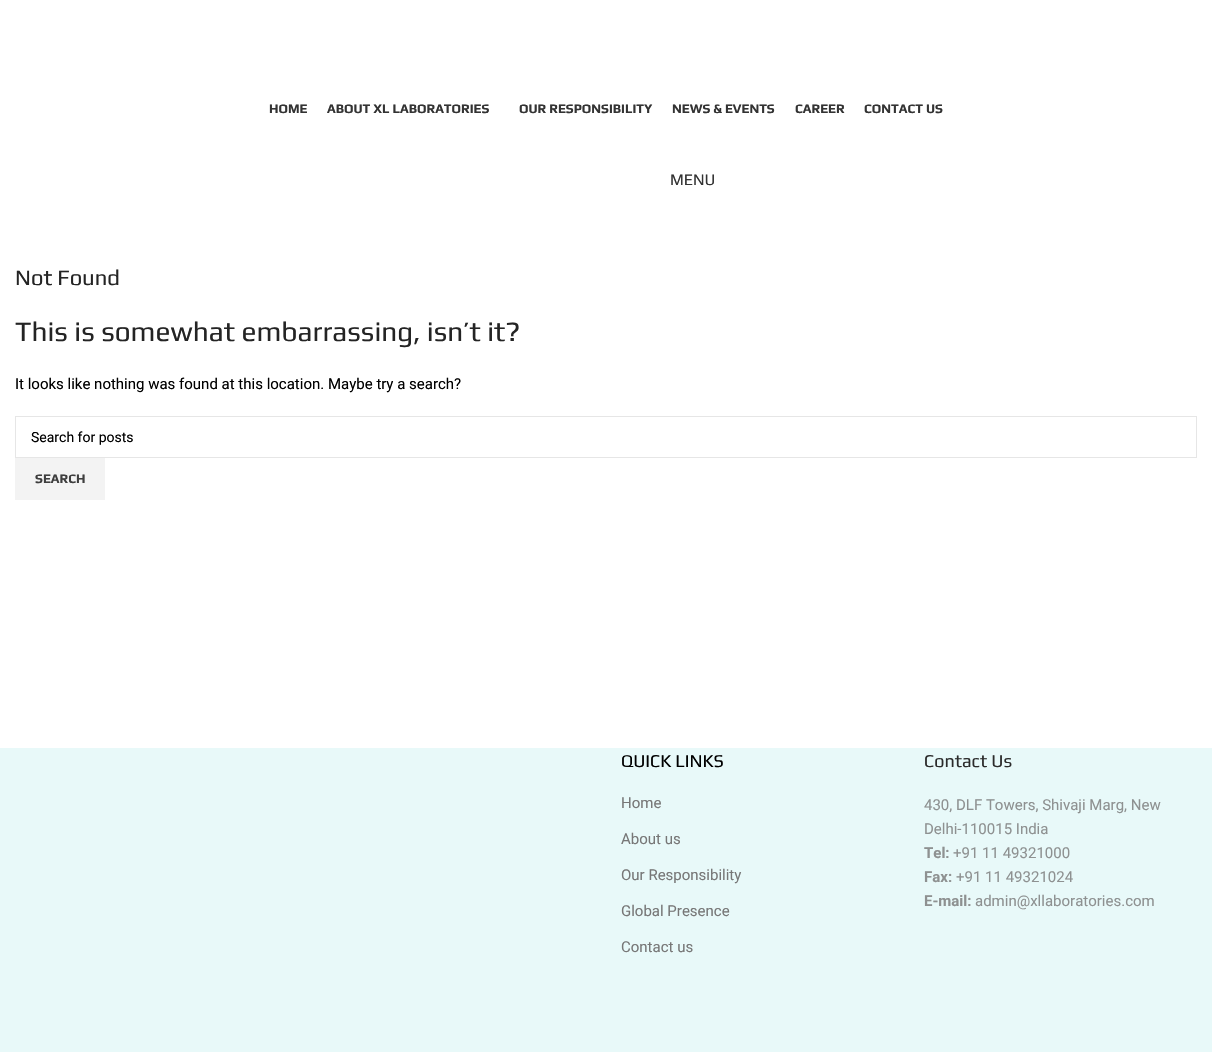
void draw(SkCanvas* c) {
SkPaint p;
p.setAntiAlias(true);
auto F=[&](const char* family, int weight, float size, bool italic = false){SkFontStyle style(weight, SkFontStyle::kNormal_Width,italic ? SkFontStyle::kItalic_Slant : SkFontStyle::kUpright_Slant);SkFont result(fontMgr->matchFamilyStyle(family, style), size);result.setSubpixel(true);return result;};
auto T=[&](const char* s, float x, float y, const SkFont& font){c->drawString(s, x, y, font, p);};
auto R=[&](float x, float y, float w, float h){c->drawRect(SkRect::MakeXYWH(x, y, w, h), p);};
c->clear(0xffffffff);
auto f1 = F("Play",700,13);
p.setColor(0xff333333);
T("HOME",269,113,f1);
T("ABOUT XL LABORATORIES",327,113,f1);
T("OUR RESPONSIBILITY",519,113,f1);
T("NEWS & EVENTS",672,113,f1);
T("CAREER",795,113,f1);
T("CONTACT US",864,113,f1);
auto f2 = F("Play",400,16);
T("MENU",670,185,f2);
auto f3 = F("Play",400,22);
p.setColor(0xff242424);
T("Not Found",15,285,f3);
auto f4 = F("Play",400,28);
T("This is somewhat embarrassing, isn’t it?",15,341,f4);
auto f5 = F("Roboto",400,15);
p.setColor(0xff000000);
T("It looks like nothing was found at this location. Maybe try a search?",15,389,f5);
p.setStroke(true);
p.setStrokeWidth(1);
p.setColor(0xffe6e6e6);
c->drawRect(SkRect::MakeXYWH(15.5,416.5,1181,41),p);
auto f6 = F("Roboto",400,14);
p.setStroke(false);
p.setColor(0xff000000);
T("Search for posts",31,442,f6);
p.setColor(0xfff3f3f3);
R(15,458,90,42);
p.setColor(0xff3e3e3e);
T("SEARCH",35,483,f1);
p.setColor(0xffe8f9f9);
R(0,748,1212,304);
auto f7 = F("Play",400,18);
p.setColor(0xff000000);
T("QUICK LINKS",621,767,f7);
p.setColor(0xff777777);
T("Home",621,808,f5);
T("About us",621,844,f5);
T("Our Responsibility",621,880,f5);
T("Global Presence",621,916,f5);
T("Contact us",621,952,f5);
p.setColor(0xff2b2b2b);
T("Contact Us",924,767,f7);
p.setColor(0xff8e9191);
T("430, DLF Towers, Shivaji Marg, New",924,810,f5);
T("Delhi-110015 India",924,834,f5);
auto f8 = F("Roboto",700,15);
T("Tel:",924,858,f8);
T("+91 11 49321000",953,858,f5);
T("Fax:",924,882,f8);
T("+91 11 49321024",956,882,f5);
T("E-mail:",924,906,f8);
T("admin@xllaboratories.com",975,906,f5);
}
